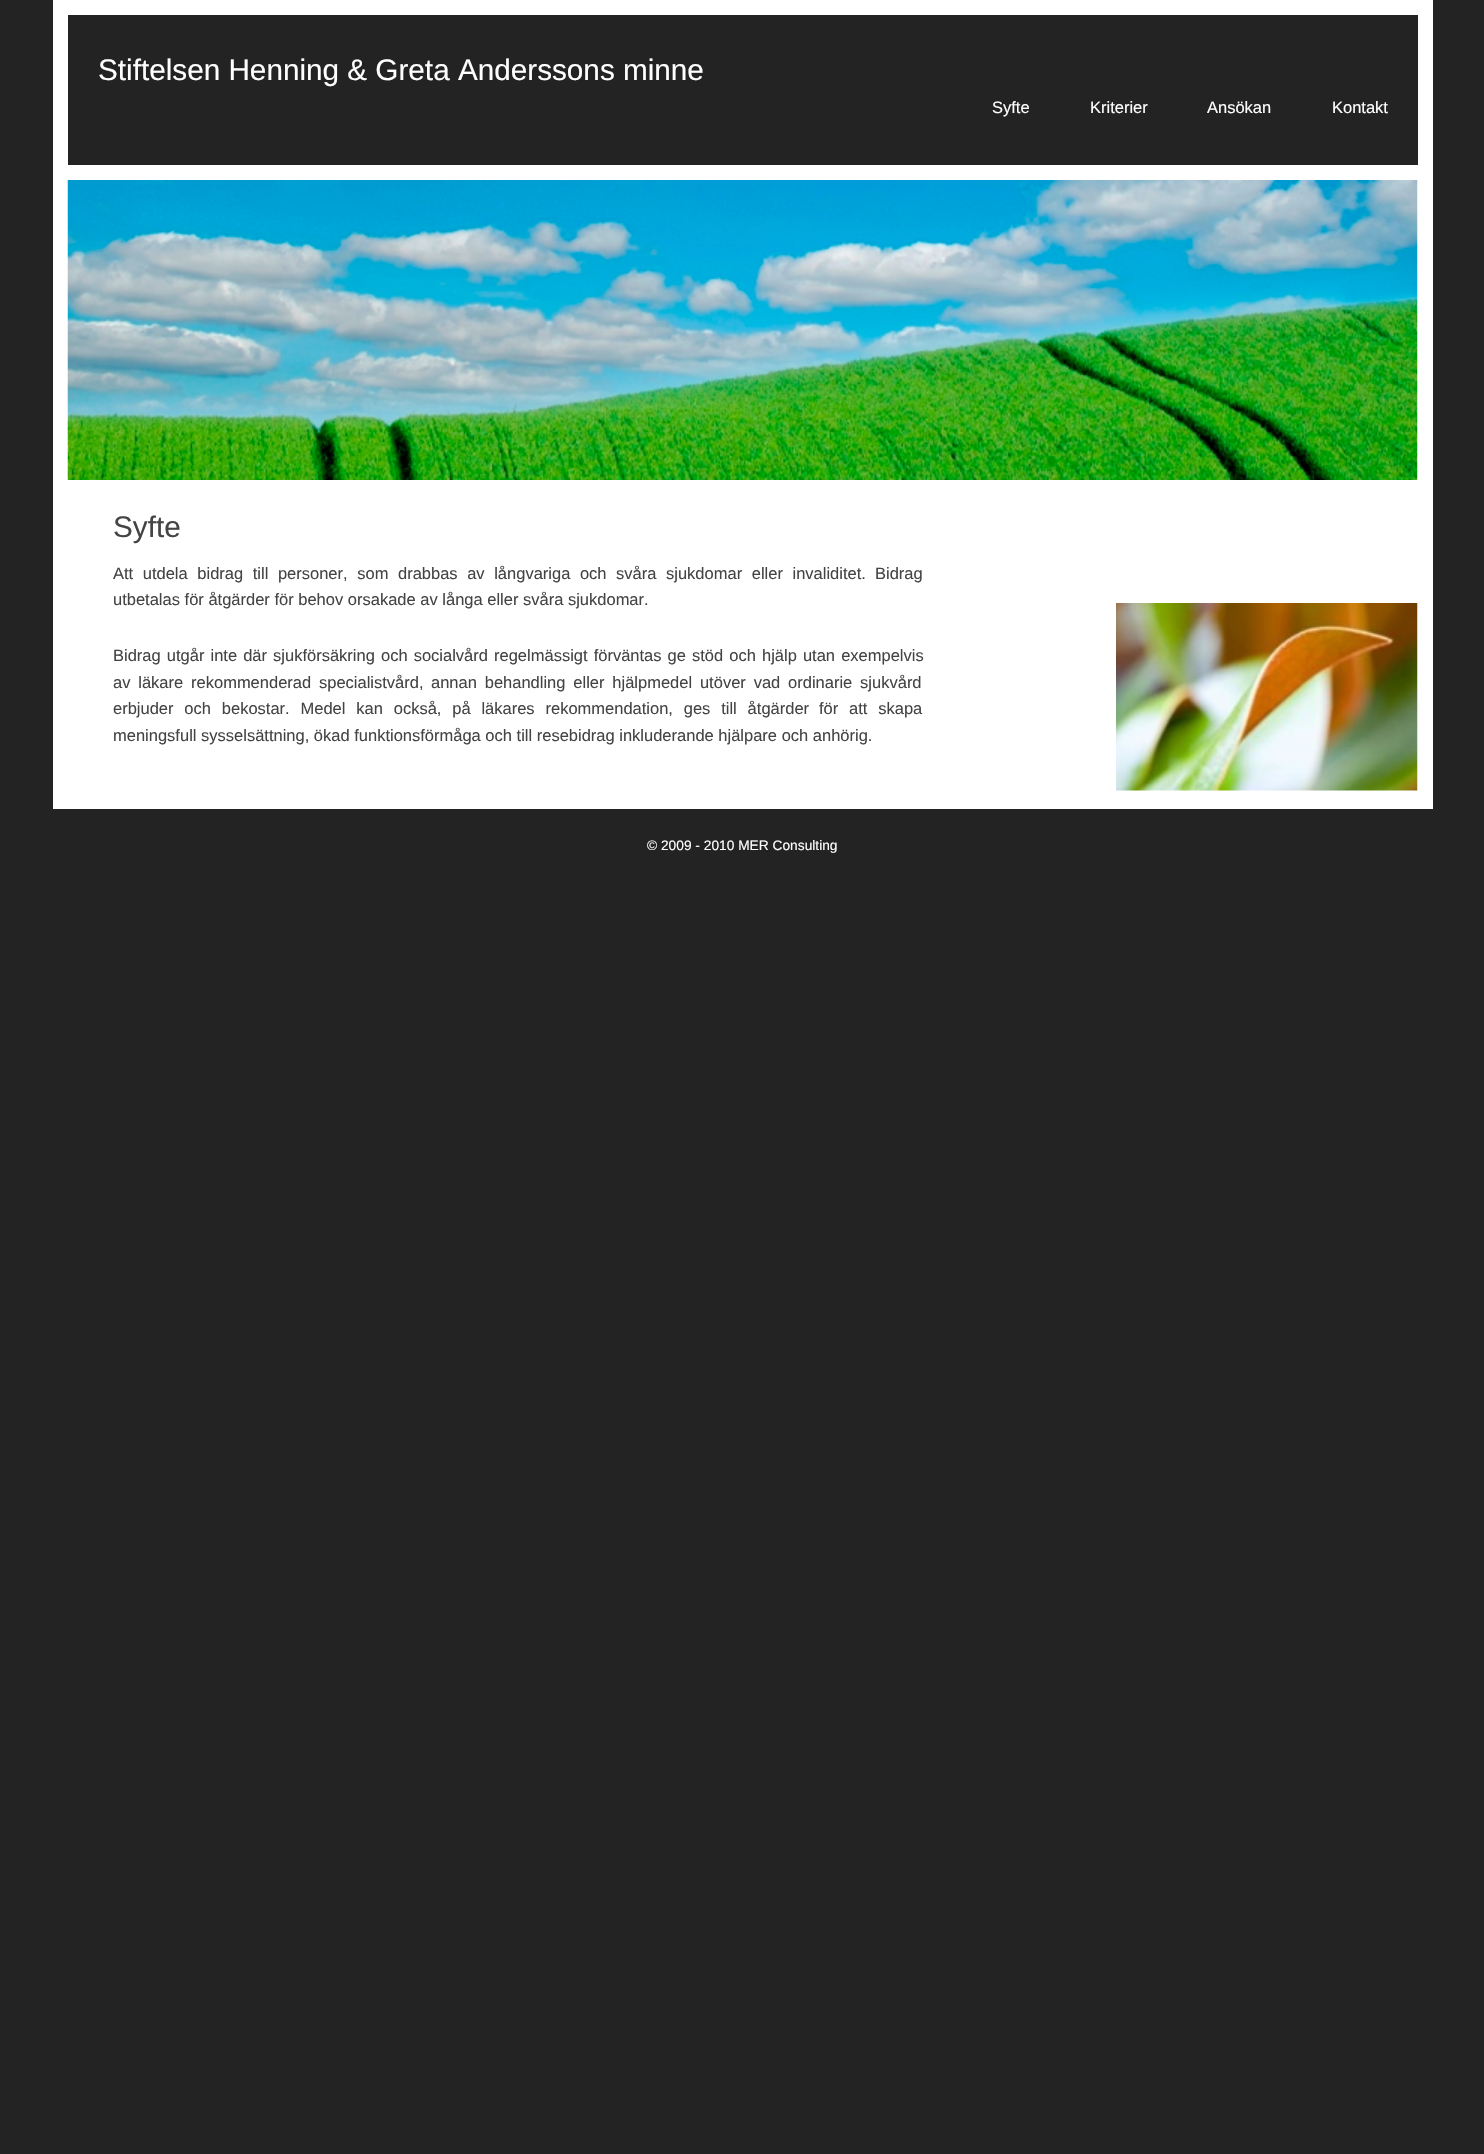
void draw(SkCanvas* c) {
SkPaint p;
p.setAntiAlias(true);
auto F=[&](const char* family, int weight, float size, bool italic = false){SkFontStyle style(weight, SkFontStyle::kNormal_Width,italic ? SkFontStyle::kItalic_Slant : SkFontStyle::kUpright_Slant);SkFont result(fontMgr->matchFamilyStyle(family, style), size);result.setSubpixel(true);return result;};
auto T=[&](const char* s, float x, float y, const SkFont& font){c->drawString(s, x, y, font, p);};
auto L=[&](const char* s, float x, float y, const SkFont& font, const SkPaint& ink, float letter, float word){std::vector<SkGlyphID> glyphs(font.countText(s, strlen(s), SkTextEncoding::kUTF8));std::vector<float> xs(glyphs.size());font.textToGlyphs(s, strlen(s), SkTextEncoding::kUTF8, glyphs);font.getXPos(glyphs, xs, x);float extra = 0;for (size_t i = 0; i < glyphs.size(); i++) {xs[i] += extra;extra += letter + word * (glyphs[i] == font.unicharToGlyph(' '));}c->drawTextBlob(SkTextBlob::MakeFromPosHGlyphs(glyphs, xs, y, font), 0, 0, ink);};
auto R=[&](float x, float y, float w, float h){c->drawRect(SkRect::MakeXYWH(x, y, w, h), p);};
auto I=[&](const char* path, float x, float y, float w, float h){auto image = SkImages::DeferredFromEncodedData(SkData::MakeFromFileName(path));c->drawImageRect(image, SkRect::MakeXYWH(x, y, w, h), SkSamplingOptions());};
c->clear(0xff242323);
p.setStroke(true);
p.setStrokeWidth(15);
p.setColor(0xffffffff);
c->drawRect(SkRect::MakeXYWH(60.5,7.5,1365,794),p);
auto f1 = F("Liberation Sans",400,29.7);
p.setStroke(false);
T("Stiftelsen Henning & Greta Anderssons minne",98,80,f1);
auto f2 = F("Liberation Sans",400,16.5);
T("Syfte",992,113,f2);
T("Kriterier",1090,113,f2);
T("Ansökan",1207,113,f2);
T("Kontakt",1332,113,f2);
R(68,165,1350,629);
I("1.png",67,180,1351,300);
p.setColor(0xff444444);
T("Syfte",113,537,f1);
L("Att utdela bidrag till personer, som drabbas av långvariga och svåra sjukdomar eller invaliditet.",113,579,f2,p,0,5);
T("Bidrag",875,579,f2);
T("utbetalas för åtgärder för behov orsakade av långa eller svåra sjukdomar.",113,605,f2);
L("Bidrag utgår inte där sjukförsäkring och socialvård regelmässigt förväntas ge stöd och hjälp utan exempelvis",113,661,f2,p,0,1.5);
L("av läkare rekommenderad specialistvård,",113,688,f2,p,0,3.25);
L("annan behandling eller hjälpmedel utöver vad ordinarie sjukvård",431,688,f2,p,0,3.25);
L("erbjuder och bekostar. Medel kan också, på läkares rekommendation, ges till åtgärder",113,714,f2,p,0,6.25);
L("för att skapa",819,714,f2,p,0,6.25);
T("meningsfull sysselsättning, ökad funktionsförmåga och till resebidrag inkluderande hjälpare och anhörig.",113,741,f2);
I("2.png",1116,603,302,188);
auto f3 = F("Liberation Sans",400,13.75);
p.setColor(0xffffffff);
T("© 2009 - 2010 MER Consulting",647,850,f3);
}
